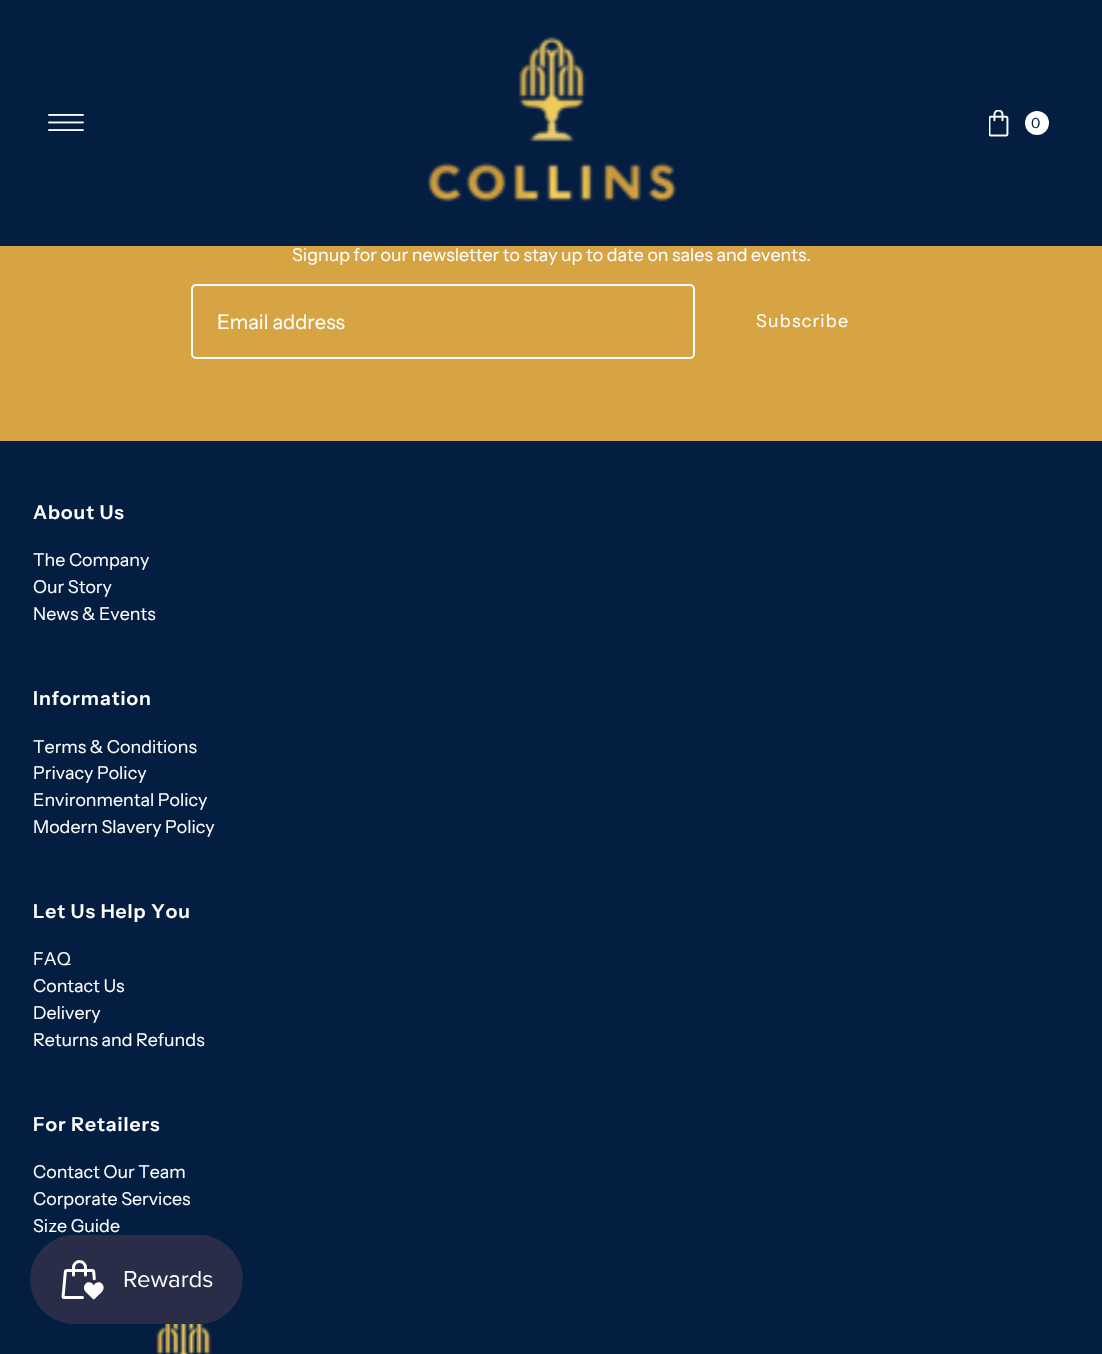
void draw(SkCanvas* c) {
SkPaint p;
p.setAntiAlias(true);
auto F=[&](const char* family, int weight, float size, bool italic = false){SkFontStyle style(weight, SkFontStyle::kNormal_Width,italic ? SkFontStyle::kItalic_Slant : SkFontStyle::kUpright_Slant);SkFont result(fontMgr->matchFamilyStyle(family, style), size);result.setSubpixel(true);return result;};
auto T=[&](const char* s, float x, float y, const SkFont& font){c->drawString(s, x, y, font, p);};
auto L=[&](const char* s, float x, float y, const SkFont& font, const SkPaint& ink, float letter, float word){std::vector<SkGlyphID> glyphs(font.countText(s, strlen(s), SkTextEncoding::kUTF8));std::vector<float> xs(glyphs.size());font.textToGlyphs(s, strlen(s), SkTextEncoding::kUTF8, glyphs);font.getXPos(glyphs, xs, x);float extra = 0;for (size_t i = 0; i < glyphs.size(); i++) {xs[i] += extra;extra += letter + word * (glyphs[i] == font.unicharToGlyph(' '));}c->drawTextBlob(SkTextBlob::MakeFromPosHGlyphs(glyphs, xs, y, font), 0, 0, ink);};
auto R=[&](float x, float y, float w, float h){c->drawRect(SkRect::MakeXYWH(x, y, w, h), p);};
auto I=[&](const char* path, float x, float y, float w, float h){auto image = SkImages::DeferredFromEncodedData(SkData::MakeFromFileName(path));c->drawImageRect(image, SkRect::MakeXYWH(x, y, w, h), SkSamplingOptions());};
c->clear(0xffd6a442);
p.setColor(0xff041e42);
R(0,0,1102,246);
I("1.png",48,114,36,17);
I("2.png",427,36,250,166);
I("3.png",989,110,20,27);
p.setColor(0xffffffff);
c->drawCircle(1037,123,12,p);
auto f1 = F("Instrument Sans",400,14);
p.setColor(0xff041e42);
T("0",1031,128,f1);
auto f2 = F("Instrument Sans",400,17.85);
p.setColor(0xffffffff);
T("Signup for our newsletter to stay up to date on sales and events.",292,261,f2);
p.setStroke(true);
p.setStrokeWidth(2);
c->drawRoundRect(SkRect::MakeXYWH(192,285,502,73),4,4,p);
auto f3 = F("Instrument Sans",400,20);
p.setStroke(false);
T("Email address",217,329,f3);
L("Subscribe",756,327,f2,p,1.25,0);
p.setColor(0xff041e42);
R(0,441,1102,913);
auto f4 = F("Instrument Sans",600,19.25);
p.setColor(0xffffffff);
L("About Us",33,519,f4,p,1,0);
T("The Company",33,566,f2);
T("Our Story",33,593,f2);
T("News & Events",33,620,f2);
L("Information",33,705,f4,p,1,0);
T("Terms & Conditions",33,753,f2);
T("Privacy Policy",33,779,f2);
T("Environmental Policy",33,806,f2);
T("Modern Slavery Policy",33,833,f2);
L("Let Us Help You",33,918,f4,p,1,0);
T("FAQ",33,965,f2);
T("Contact Us",33,992,f2);
T("Delivery",33,1019,f2);
T("Returns and Refunds",33,1046,f2);
L("For Retailers",33,1131,f4,p,1,0);
T("Contact Our Team",33,1178,f2);
T("Corporate Services",33,1205,f2);
T("Size Guide",33,1232,f2);
I("4.png",156,1324,56,30);
I("5.png",30,1235,213,90);
}
